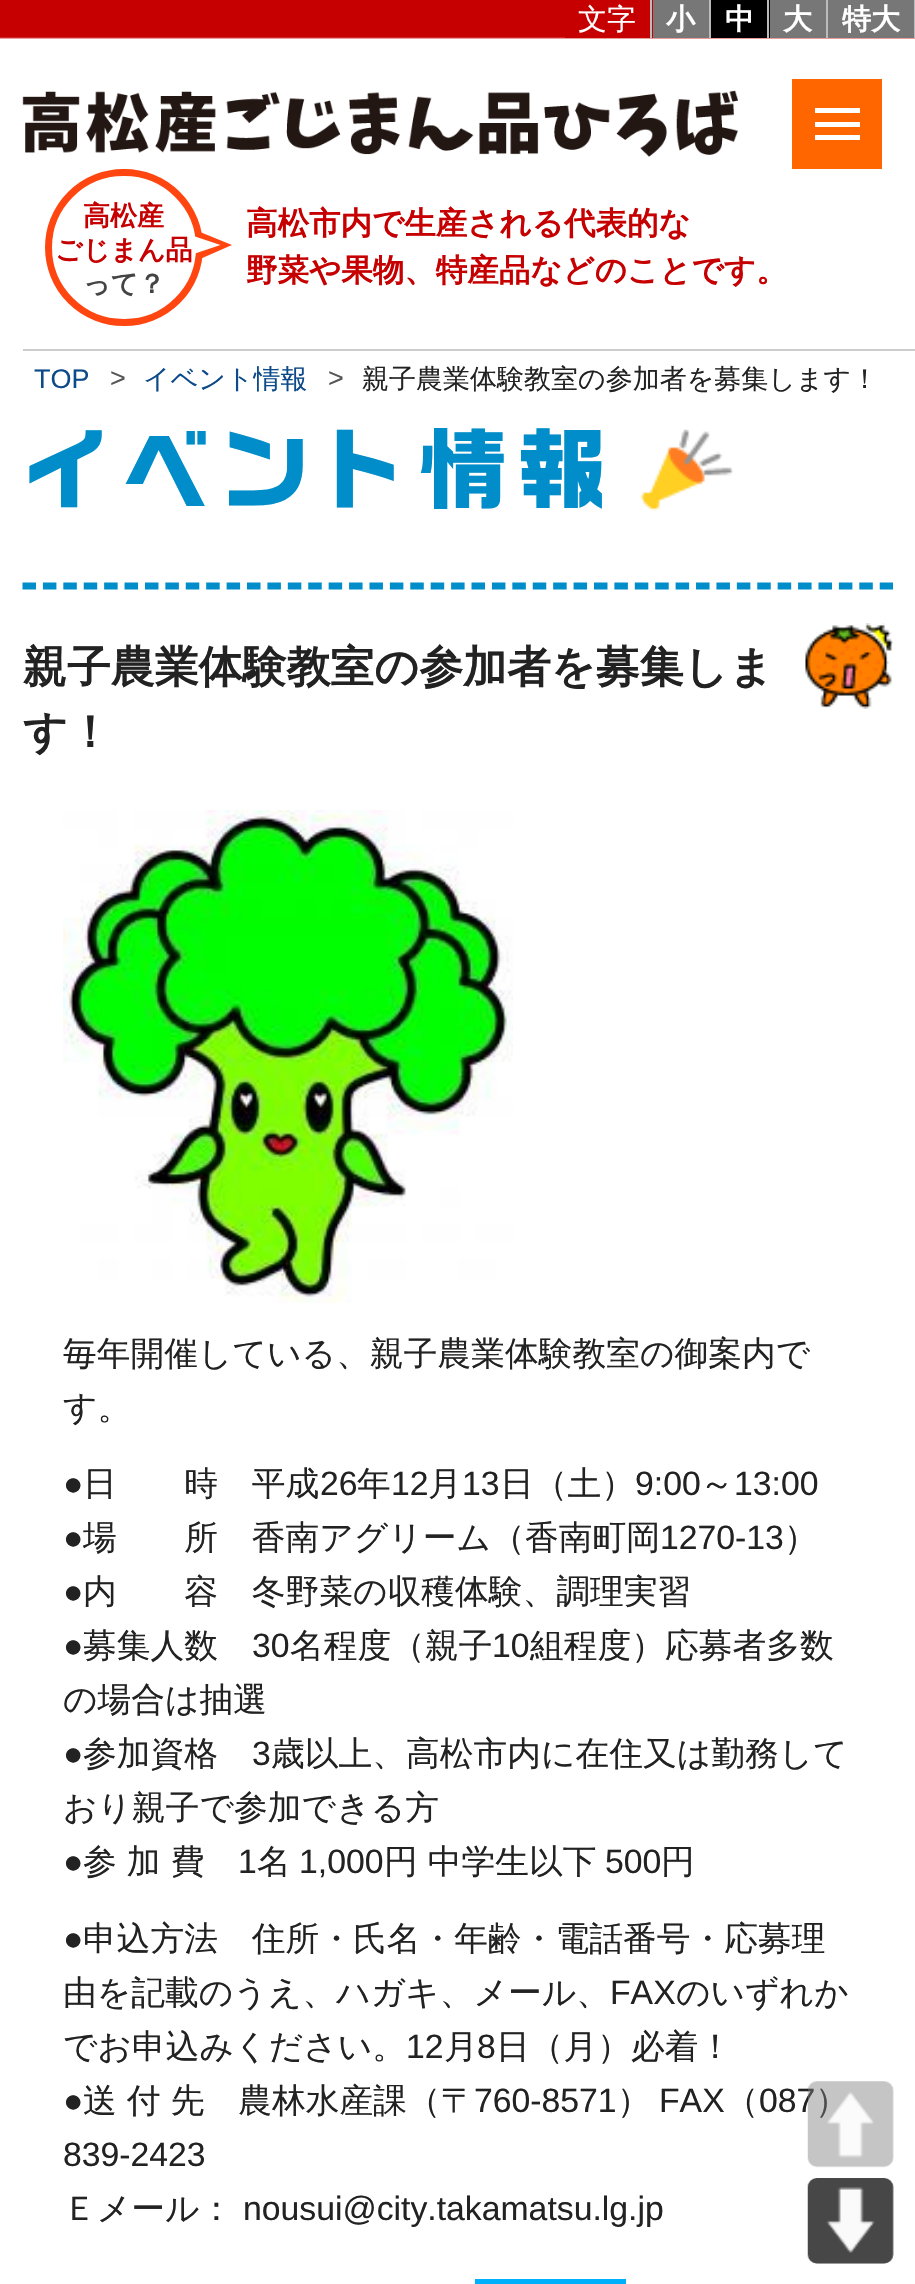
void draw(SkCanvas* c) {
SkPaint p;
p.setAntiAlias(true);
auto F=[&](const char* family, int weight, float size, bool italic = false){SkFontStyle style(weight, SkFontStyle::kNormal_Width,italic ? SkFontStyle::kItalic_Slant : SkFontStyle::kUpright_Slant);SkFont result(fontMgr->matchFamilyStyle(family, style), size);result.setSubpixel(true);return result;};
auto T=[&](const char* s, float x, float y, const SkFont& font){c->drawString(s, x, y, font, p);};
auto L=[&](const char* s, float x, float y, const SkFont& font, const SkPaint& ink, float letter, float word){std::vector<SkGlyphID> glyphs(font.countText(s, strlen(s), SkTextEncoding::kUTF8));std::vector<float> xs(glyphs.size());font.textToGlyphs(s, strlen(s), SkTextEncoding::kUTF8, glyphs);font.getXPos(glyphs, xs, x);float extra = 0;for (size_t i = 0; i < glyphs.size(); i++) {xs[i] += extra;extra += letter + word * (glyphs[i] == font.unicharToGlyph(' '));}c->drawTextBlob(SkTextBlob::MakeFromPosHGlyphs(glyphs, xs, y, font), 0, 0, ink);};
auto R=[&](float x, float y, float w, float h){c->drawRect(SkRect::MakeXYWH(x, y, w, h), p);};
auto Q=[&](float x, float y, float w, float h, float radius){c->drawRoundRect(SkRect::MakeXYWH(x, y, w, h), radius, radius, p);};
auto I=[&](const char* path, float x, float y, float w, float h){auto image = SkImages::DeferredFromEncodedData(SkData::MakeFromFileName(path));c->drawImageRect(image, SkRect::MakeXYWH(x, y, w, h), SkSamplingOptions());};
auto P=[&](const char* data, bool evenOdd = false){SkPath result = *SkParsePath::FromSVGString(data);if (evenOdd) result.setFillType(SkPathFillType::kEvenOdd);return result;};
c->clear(0xffffffff);
I("1.png",0,0,915,39);
p.setColor(0xffcccccc);
R(23,349,892,2);
p.setColor(0xffc60000);
R(565,37,88,1);
p.setColor(0xffbbbbbb);
R(650,0,2,38);
auto f1 = F("WenQuanYi Zen Hei",500,29);
p.setColor(0xffffffff);
T("文字",578,29,f1);
p.setColor(0xff777777);
R(653,0,56,38);
p.setColor(0xffbbbbbb);
R(709,0,2,38);
auto f2 = F("WenQuanYi Zen Hei",700,29);
p.setColor(0xffffffff);
T("小",666,29,f2);
p.setColor(0xff000000);
R(711,0,59,38);
p.setColor(0xffbbbbbb);
R(767,0,2,38);
p.setColor(0xffffffff);
T("中",725,29,f2);
p.setColor(0xff777777);
R(770,0,56,38);
p.setColor(0xffbbbbbb);
R(826,0,2,38);
p.setColor(0xffffffff);
T("大",783,29,f2);
p.setColor(0xff777777);
R(828,0,86,38);
p.setColor(0xffbbbbbb);
R(914,0,1,38);
p.setColor(0xffffffff);
T("特大",842,29,f2);
I("2.png",22,90,716,67);
p.setColor(0xffff6600);
R(792,79,90,90);
p.setColor(0xffffffff);
R(815,108,45,5);
R(815,122,45,5);
R(815,135,45,5);
p.setStroke(true);
p.setStrokeWidth(7);
p.setColor(0xffff4610);
c->drawRoundRect(SkRect::MakeXYWH(48.5,172.5,151,150),75,75,p);
auto f3 = F("WenQuanYi Zen Hei",700,27);
p.setStroke(false);
p.setColor(0xffc60000);
T("高松産",83,225,f3);
p.setColor(0xffff4610);
c->drawPath(P("M200 259v-27l32 13z"),p);
p.setColor(0xffc60000);
T("ごじまん品",55,259,f3);
p.setColor(0xffffffff);
c->drawPath(P("M193.5 254v-18l27 9z"),p);
p.setColor(0xff444444);
T("って？",83,293,f3);
auto f4 = F("WenQuanYi Zen Hei",700,31.5);
p.setColor(0xffc60000);
T("高松市内で生産される代表的な",246,234,f4);
T("野菜や果物、特産品などのことです。",246,281,f4);
auto f5 = F("Liberation Sans",400,27);
p.setColor(0xff0d4a89);
T("TOP",34,388,f5);
p.setColor(0xff555555);
T(">",110,387,f5);
auto f6 = F("WenQuanYi Zen Hei",500,27);
p.setColor(0xff0d4a89);
T("イベント情報",143,388,f6);
p.setColor(0xff555555);
T(">",328,387,f5);
p.setColor(0xff222222);
T("親子農業体験教室の参加者を募集します！",362,388,f6);
I("3.png",640,429,94,82);
auto f7 = F("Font",400,87.75);
p.setColor(0xff008dc9);
L("イベント情報",23,502,f7,p,11.25,0);
p.setStroke(true);
p.setStrokeWidth(6.8);
p.setPathEffect(SkDashPathEffect::Make({{13.5f,6.91f}}, 0));
c->drawPath(P("M22.5 586h870.5"),p);
p.setPathEffect(nullptr);
I("4.png",805,623,88,86);
auto f8 = F("WenQuanYi Zen Hei",700,43.9);
p.setStroke(false);
p.setColor(0xff222222);
T("親子農業体験教室の参加者を募集しま",23,682,f8);
T("す！",23,747,f8);
I("5.png",63,810,450,493);
auto f9 = F("WenQuanYi Zen Hei",500,33.75);
T("毎年開催している、親子農業体験教室の御案内で",63,1365,f9);
T("す。",63,1419,f9);
auto f10 = F("Liberation Sans",400,33.75);
T("●",63,1495,f10);
T("日　　時　平成",83,1495,f9);
T("26",320,1495,f10);
T("年",357,1495,f9);
T("12",391,1495,f10);
T("月",428,1495,f9);
T("13",462,1495,f10);
T("日（土）",500,1495,f9);
T("9:00",635,1495,f10);
T("～",700,1495,f9);
T("13:00",734,1495,f10);
T("●",63,1549,f10);
T("場　　所　香南アグリーム（香南町岡",83,1549,f9);
T("1270-13",660,1549,f10);
T("）",784,1549,f9);
T("●",63,1603,f10);
T("内　　容　冬野菜の収穫体験、調理実習",83,1603,f9);
T("●",63,1657,f10);
T("募集人数",83,1657,f9);
T("30",252,1657,f10);
T("名程度（親子",290,1657,f9);
T("10",492,1657,f10);
T("組程度）応募者多数",530,1657,f9);
T("の場合は抽選",63,1711,f9);
T("●",63,1765,f10);
T("参加資格",83,1765,f9);
T("3",252,1765,f10);
T("歳以上、高松市内に在住又は勤務して",271,1765,f9);
T("おり親子で参加できる方",63,1819,f9);
T("●",63,1873,f10);
T("参 加 費",83,1873,f9);
T("1",238,1873,f10);
T("名",257,1873,f9);
T("1,000",299,1873,f10);
T("円 中学生以下",384,1873,f9);
T("500",605,1873,f10);
T("円",661,1873,f9);
T("●",63,1950,f10);
T("申込方法　住所・氏名・年齢・電話番号・応募理",83,1950,f9);
T("由を記載のうえ、ハガキ、メール、",63,2004,f9);
T("FAX",610,2004,f10);
T("のいずれか",676,2004,f9);
T("でお申込みください。",63,2058,f9);
T("12",406,2058,f10);
T("月",444,2058,f9);
T("8",477,2058,f10);
T("日（月）必着！",496,2058,f9);
T("●",63,2112,f10);
T("送 付 先　農林水産課（〒",83,2112,f9);
T("760-8571",474,2112,f10);
T("）",617,2112,f9);
T("FAX",659,2112,f10);
T("（",725,2112,f9);
T("087",759,2112,f10);
T("）",815,2112,f9);
T("839-2423",63,2166,f10);
T("Ｅメール：",63,2220,f9);
T("nousui@city.takamatsu.lg.jp",243,2220,f10);
p.setColor(0xff00b0fb);
R(475,2279,151,5);
p.setColor(0x4defefef);
Q(808,2081,85,86,9);
I("6.png",807,2081,87,87);
p.setColor(0xffefefef);
Q(808,2178,85,86,9);
I("7.png",807,2178,87,86);
}
